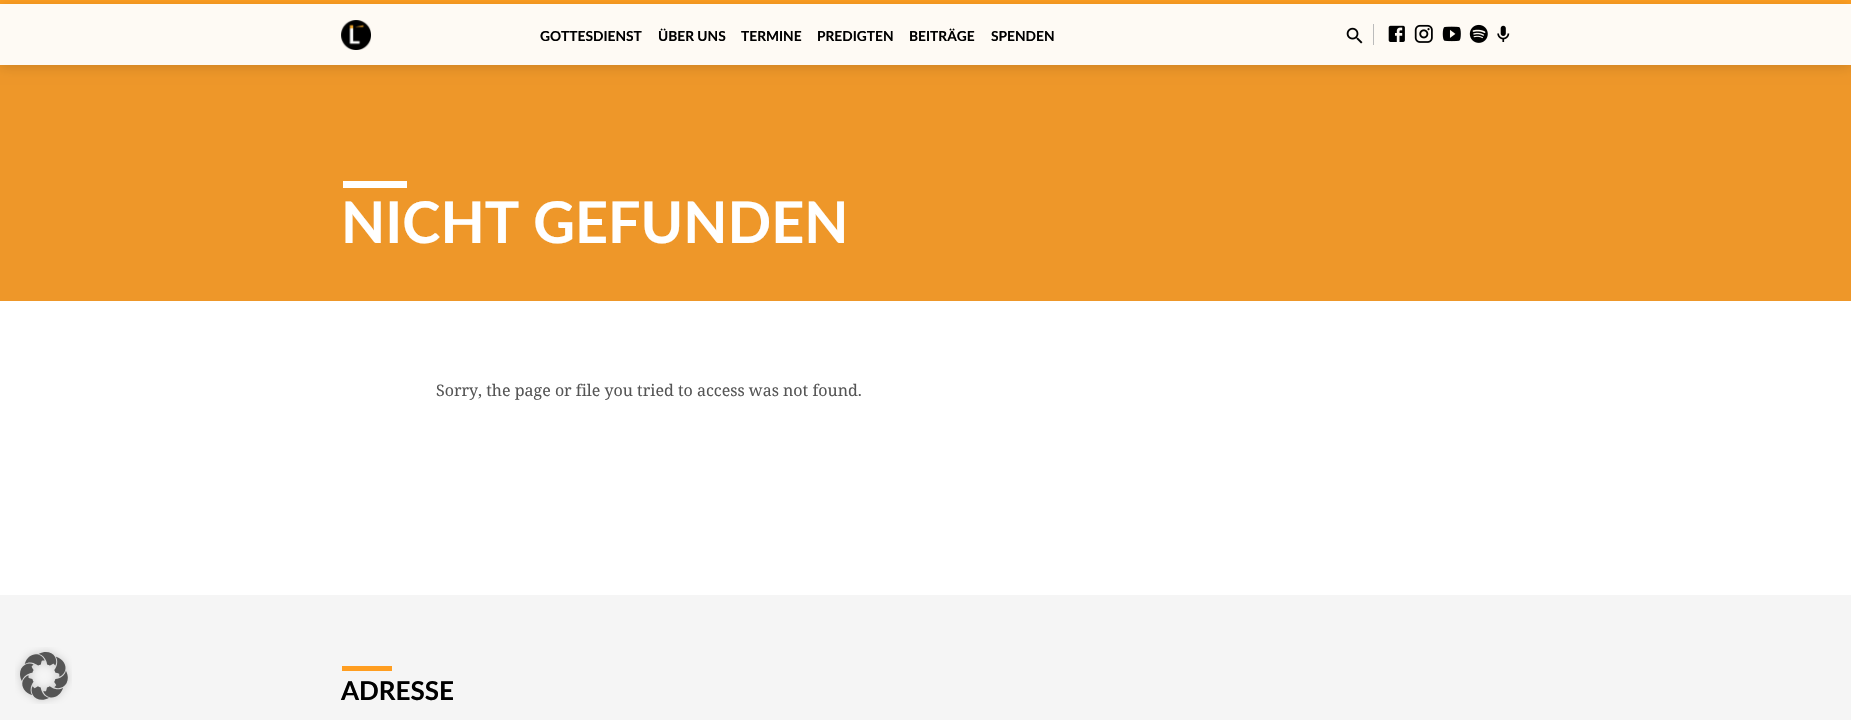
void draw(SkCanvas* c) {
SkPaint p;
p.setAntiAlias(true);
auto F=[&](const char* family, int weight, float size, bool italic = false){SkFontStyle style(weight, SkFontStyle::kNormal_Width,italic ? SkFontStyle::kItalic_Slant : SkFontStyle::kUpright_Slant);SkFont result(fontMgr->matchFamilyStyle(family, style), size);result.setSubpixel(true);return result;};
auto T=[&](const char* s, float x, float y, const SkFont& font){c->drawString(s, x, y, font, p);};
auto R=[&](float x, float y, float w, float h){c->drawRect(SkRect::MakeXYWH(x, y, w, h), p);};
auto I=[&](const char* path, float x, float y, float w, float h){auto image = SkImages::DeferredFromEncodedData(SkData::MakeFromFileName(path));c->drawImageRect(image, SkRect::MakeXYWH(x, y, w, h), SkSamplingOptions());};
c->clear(0xffffffff);
p.setColor(0xfffe9e21);
R(0,0,1851,4);
p.setColor(0xffee9729);
R(0,65,1851,236);
p.setColor(0x24000000);
p.setMaskFilter(SkMaskFilter::MakeBlur(kNormal_SkBlurStyle, 6));
c->drawRect(SkRect::MakeXYWH(0,6,1851,61),p);
p.setMaskFilter(nullptr);
p.setColor(0xfffefaf4);
R(0,4,1851,61);
I("1.png",341,20,30,30);
auto f1 = F("Lato",700,13.75);
p.setColor(0xff000000);
T("GOTTESDIENST",540,41,f1);
T("ÜBER UNS",658,41,f1);
T("TERMINE",741,41,f1);
T("PREDIGTEN",817,41,f1);
T("BEITRÄGE",909,41,f1);
T("SPENDEN",991,41,f1);
I("2.png",1346,27,17,17);
p.setColor(0xffbbbbbb);
R(1373,24,1,21);
I("3.png",1388,25,17,17);
I("4.png",1414,24,19,19);
I("5.png",1442,26,19,16);
I("6.png",1469,24,19,19);
I("7.png",1497,25,13,17);
p.setColor(0xffffffff);
R(343,181,64,7);
auto f2 = F("Lato",700,57.5);
T("NICHT GEFUNDEN",341,243,f2);
auto f3 = F("Noto Serif",400,16);
p.setColor(0xff555555);
T("Sorry, the page or file you tried to access was not found.",436,396,f3);
p.setColor(0xfff5f5f5);
R(0,595,1851,125);
I("8.png",15,647,57,57);
p.setColor(0xffff9e21);
R(342,666,50,5);
auto f4 = F("Lato",700,26);
p.setColor(0xff000000);
T("ADRESSE",341,700,f4);
}
